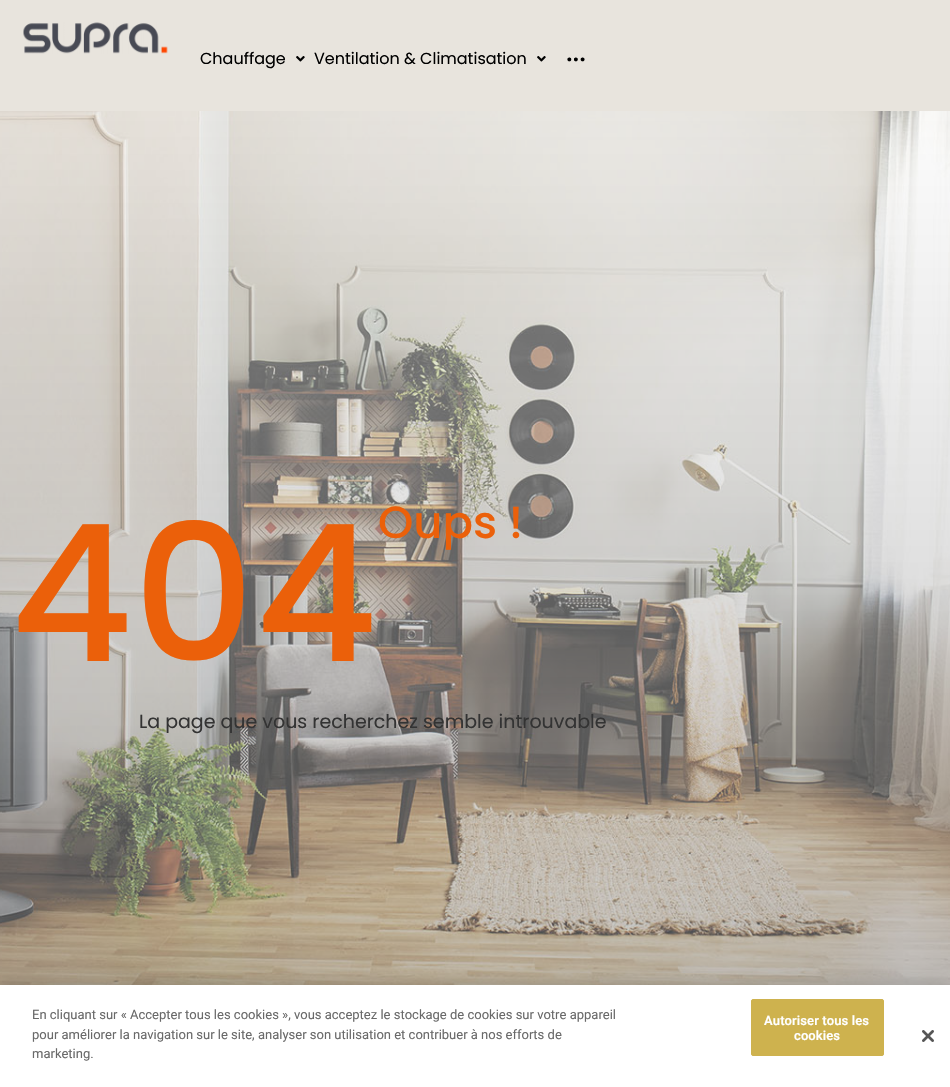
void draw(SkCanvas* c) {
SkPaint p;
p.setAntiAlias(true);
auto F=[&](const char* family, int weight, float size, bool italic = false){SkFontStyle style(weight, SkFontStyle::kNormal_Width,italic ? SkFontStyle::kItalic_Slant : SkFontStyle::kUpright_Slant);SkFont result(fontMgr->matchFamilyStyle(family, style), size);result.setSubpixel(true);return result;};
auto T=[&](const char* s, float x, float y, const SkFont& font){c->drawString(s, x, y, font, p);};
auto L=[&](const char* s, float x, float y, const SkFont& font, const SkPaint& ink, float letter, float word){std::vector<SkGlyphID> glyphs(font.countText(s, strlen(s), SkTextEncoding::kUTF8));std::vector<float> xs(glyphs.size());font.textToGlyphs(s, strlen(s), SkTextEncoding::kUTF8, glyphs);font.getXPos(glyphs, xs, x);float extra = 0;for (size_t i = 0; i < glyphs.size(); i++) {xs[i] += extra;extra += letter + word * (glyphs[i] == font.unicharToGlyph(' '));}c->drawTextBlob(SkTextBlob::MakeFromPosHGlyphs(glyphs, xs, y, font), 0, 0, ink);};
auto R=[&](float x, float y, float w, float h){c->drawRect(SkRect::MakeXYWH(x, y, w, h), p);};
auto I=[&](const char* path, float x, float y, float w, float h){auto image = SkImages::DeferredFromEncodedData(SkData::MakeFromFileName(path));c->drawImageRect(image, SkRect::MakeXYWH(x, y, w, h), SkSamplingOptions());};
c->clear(0xffffffff);
p.setColor(0xffe8e4dd);
R(0,0,950,111);
I("1.png",23,22,145,32);
auto f1 = F("Poppins",400,16);
p.setColor(0xff000000);
T("Chauffage",200,64,f1);
I("2.png",296,56,9,6);
T("Ventilation & Climatisation",314,64,f1);
I("2.png",537,56,9,6);
auto f2 = F("Poppins",400,31);
T("···",566,70,f2);
I("3.png",0,111,950,874);
auto f3 = F("Poppins",500,190);
p.setColor(0xffeb600a);
T("404",10,661,f3);
auto f4 = F("Poppins",500,45);
T("Oups !",378,538,f4);
auto f5 = F("Poppins",400,19);
p.setColor(0xff333333);
T("La page que vous recherchez semble introuvable",139,728,f5);
p.setColor(0x33000000);
p.setMaskFilter(SkMaskFilter::MakeBlur(kNormal_SkBlurStyle, 9));
c->drawRect(SkRect::MakeXYWH(0,985,950,102),p);
p.setMaskFilter(nullptr);
p.setColor(0xffffffff);
R(0,985,950,102);
auto f6 = F("Roboto",400,13);
p.setColor(0xff696969);
T("En cliquant sur « Accepter tous les cookies », vous acceptez le stockage de cookies sur votre appareil",32,1019,f6);
T("pour améliorer la navigation sur le site, analyser son utilisation et contribuer à nos efforts de",32,1039,f6);
T("marketing.",32,1058,f6);
p.setColor(0xffceb24e);
c->drawRoundRect(SkRect::MakeXYWH(751.5,999.5,132,56),1.5,1.5,p);
p.setStroke(true);
p.setStrokeWidth(1);
c->drawRoundRect(SkRect::MakeXYWH(751.5,999.5,132,56),1.5,1.5,p);
auto f7 = F("Roboto",600,13);
p.setStroke(false);
p.setColor(0xffffffff);
L("Autoriser tous les",764,1025,f7,p,.1,0);
L("cookies",794,1040,f7,p,.1,0);
I("4.png",922,1030,12,12);
}
